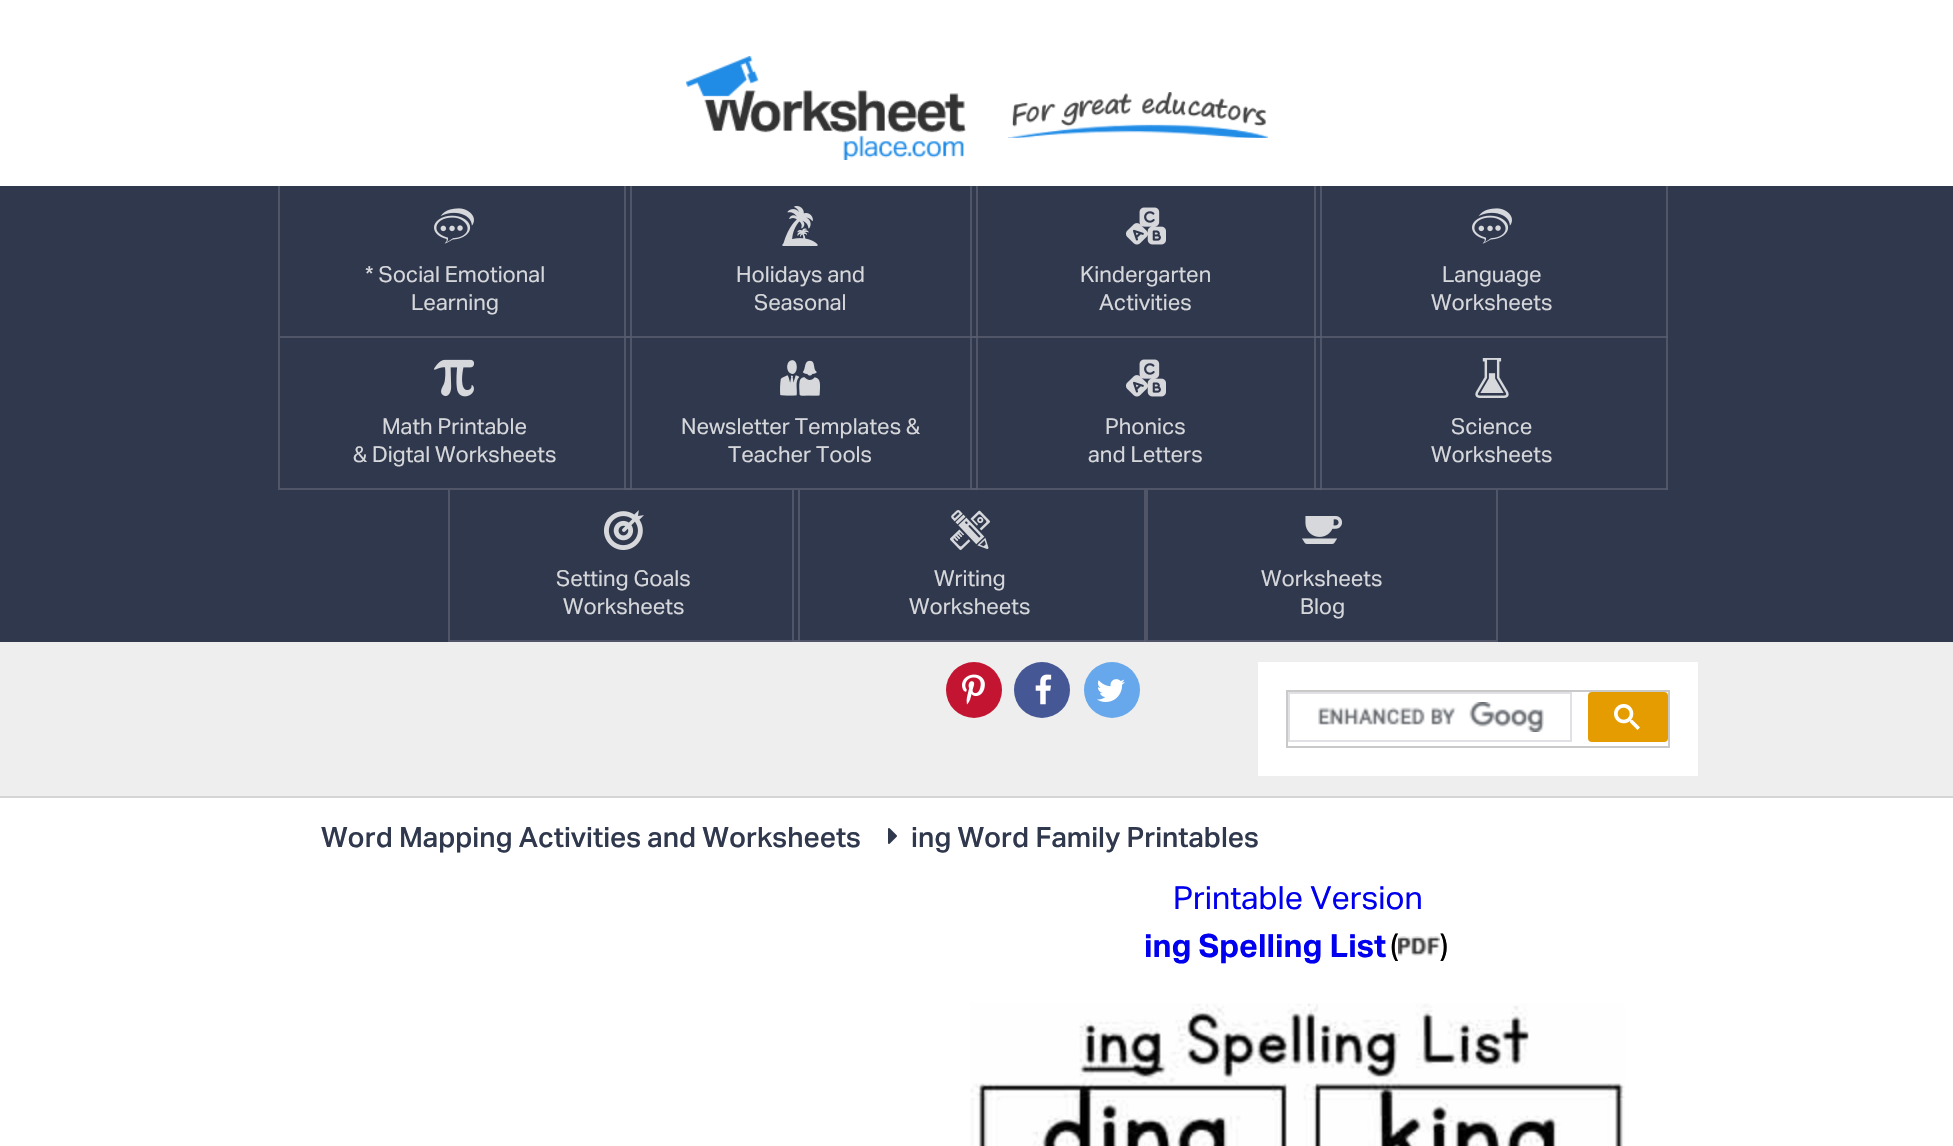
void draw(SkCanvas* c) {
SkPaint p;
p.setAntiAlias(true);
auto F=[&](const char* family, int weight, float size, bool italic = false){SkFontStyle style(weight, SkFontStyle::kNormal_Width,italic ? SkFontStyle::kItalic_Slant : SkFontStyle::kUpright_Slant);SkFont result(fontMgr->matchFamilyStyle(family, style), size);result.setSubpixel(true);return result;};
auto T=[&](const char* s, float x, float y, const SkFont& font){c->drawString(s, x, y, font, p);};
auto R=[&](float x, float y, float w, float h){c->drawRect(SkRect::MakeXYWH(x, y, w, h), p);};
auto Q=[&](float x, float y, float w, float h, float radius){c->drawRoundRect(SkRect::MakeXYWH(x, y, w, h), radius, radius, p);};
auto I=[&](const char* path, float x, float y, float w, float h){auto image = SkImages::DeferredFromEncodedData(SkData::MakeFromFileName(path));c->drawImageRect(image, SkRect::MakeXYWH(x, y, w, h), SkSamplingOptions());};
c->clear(0xffffffff);
I("1.png",686,56,280,104);
I("2.png",1008,92,260,46);
p.setColor(0xff30384d);
R(0,186,1953,456);
p.setColor(0xff505668);
R(792,490,2,152);
R(792,640,354,2);
R(1314,186,2,304);
R(1314,488,354,2);
R(970,186,2,304);
R(970,488,352,2);
p.setColor(0xff565c6e);
R(1314,488,8,2);
p.setColor(0xff505668);
R(624,186,2,304);
R(624,488,354,2);
p.setColor(0xff565c6e);
R(970,488,8,2);
p.setColor(0xff505668);
R(624,336,1044,2);
p.setColor(0xff565c6e);
R(1314,336,8,2);
R(970,336,8,2);
p.setColor(0xff505668);
R(630,186,2,304);
R(278,336,354,2);
p.setColor(0xff565c6e);
R(624,336,8,2);
p.setColor(0xff505668);
R(278,186,2,152);
I("3.png",434,208,40,36);
auto f1 = F("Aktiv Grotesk",400,22);
p.setColor(0xffd6d7db);
T("* Social Emotional",365,282,f1);
T("Learning",411,310,f1);
p.setColor(0xff505668);
R(976,186,2,304);
p.setColor(0xff585e6f);
R(976,336,2,2);
I("4.png",782,206,36,40);
p.setColor(0xffd6d7db);
T("Holidays and",736,282,f1);
T("Seasonal",754,310,f1);
p.setColor(0xff505668);
R(1320,186,2,304);
p.setColor(0xff585e6f);
R(1320,336,2,2);
I("5.png",1126,207,40,38);
p.setColor(0xffd6d7db);
T("Kindergarten",1080,282,f1);
T("Activities",1099,310,f1);
p.setColor(0xff505668);
R(1666,186,2,304);
p.setColor(0xff565c6e);
R(1666,336,2,2);
I("3.png",1472,208,40,36);
p.setColor(0xffd6d7db);
T("Language",1442,282,f1);
T("Worksheets",1431,310,f1);
p.setColor(0xff505668);
R(278,488,354,2);
p.setColor(0xff565c6e);
R(624,488,8,2);
p.setColor(0xff505668);
R(278,338,2,152);
I("6.png",434,359,40,38);
p.setColor(0xffd6d7db);
T("Math Printable",382,434,f1);
T("& Digtal Worksheets",353,462,f1);
p.setColor(0xff585e6f);
R(976,488,2,2);
I("7.png",780,360,40,36);
p.setColor(0xffd6d7db);
T("Newsletter Templates &",681,434,f1);
T("Teacher Tools",728,462,f1);
p.setColor(0xff585e6f);
R(1320,488,2,2);
I("5.png",1126,359,40,38);
p.setColor(0xffd6d7db);
T("Phonics",1105,434,f1);
T("and Letters",1088,462,f1);
p.setColor(0xff565c6e);
R(1666,488,2,2);
I("8.png",1475,358,34,40);
p.setColor(0xffd6d7db);
T("Science",1451,434,f1);
T("Worksheets",1431,462,f1);
p.setColor(0xff505668);
R(798,490,2,152);
R(448,640,352,2);
p.setColor(0xff565c6e);
R(792,640,8,2);
p.setColor(0xff505668);
R(448,490,2,152);
I("9.png",604,510,40,40);
p.setColor(0xffd6d7db);
T("Setting Goals",556,586,f1);
T("Worksheets",563,614,f1);
p.setColor(0xff505668);
R(1144,490,2,152);
p.setColor(0xff565c6e);
R(1144,640,2,2);
I("10.png",950,510,40,40);
p.setColor(0xffd6d7db);
T("Writing",934,586,f1);
T("Worksheets",909,614,f1);
p.setColor(0xff505668);
R(1496,490,2,152);
R(1146,640,352,2);
R(1146,490,2,152);
I("11.png",1302,516,40,28);
p.setColor(0xffd6d7db);
T("Worksheets",1261,586,f1);
T("Blog",1300,614,f1);
p.setColor(0xffeeeeee);
R(0,642,1953,154);
p.setColor(0xffd5d5d5);
R(0,796,1953,2);
p.setColor(0xffc31532);
c->drawCircle(974,690,28,p);
I("12.png",962,674,23,31);
p.setColor(0xff455795);
c->drawCircle(1042,690,28,p);
I("13.png",1035,674,17,31);
p.setColor(0xff66a8eb);
c->drawCircle(1112,690,28,p);
I("14.png",1097,679,28,23);
p.setColor(0xffffffff);
R(1258,662,440,114);
p.setStroke(true);
p.setStrokeWidth(2);
p.setColor(0xffc9c9c9);
c->drawRect(SkRect::MakeXYWH(1287,691,382,56),p);
p.setColor(0xffdfe1e5);
c->drawRect(SkRect::MakeXYWH(1289,693,282,48),p);
I("15.png",1318,702,226,30);
p.setStroke(false);
p.setColor(0xffe49c01);
Q(1588,692,80,50,4);
I("16.png",1614,704,26,26);
auto f2 = F("Aktiv Grotesk",500,28);
p.setColor(0xff30384d);
T("Word Mapping Activities and Worksheets",321,847,f2);
I("17.png",888,828,9,16);
T("ing Word Family Printables",911,847,f2);
auto f3 = F("Aktiv Grotesk",400,32);
p.setColor(0xff0000ee);
T("Printable Version",1173,909,f3);
auto f4 = F("Aktiv Grotesk",700,32);
T("ing Spelling List",1144,957,f4);
p.setColor(0xff000000);
T("(",1390,957,f3);
I("18.png",1398,936,42,20);
T(")",1440,957,f3);
I("19.png",970,1003,655,143);
}
